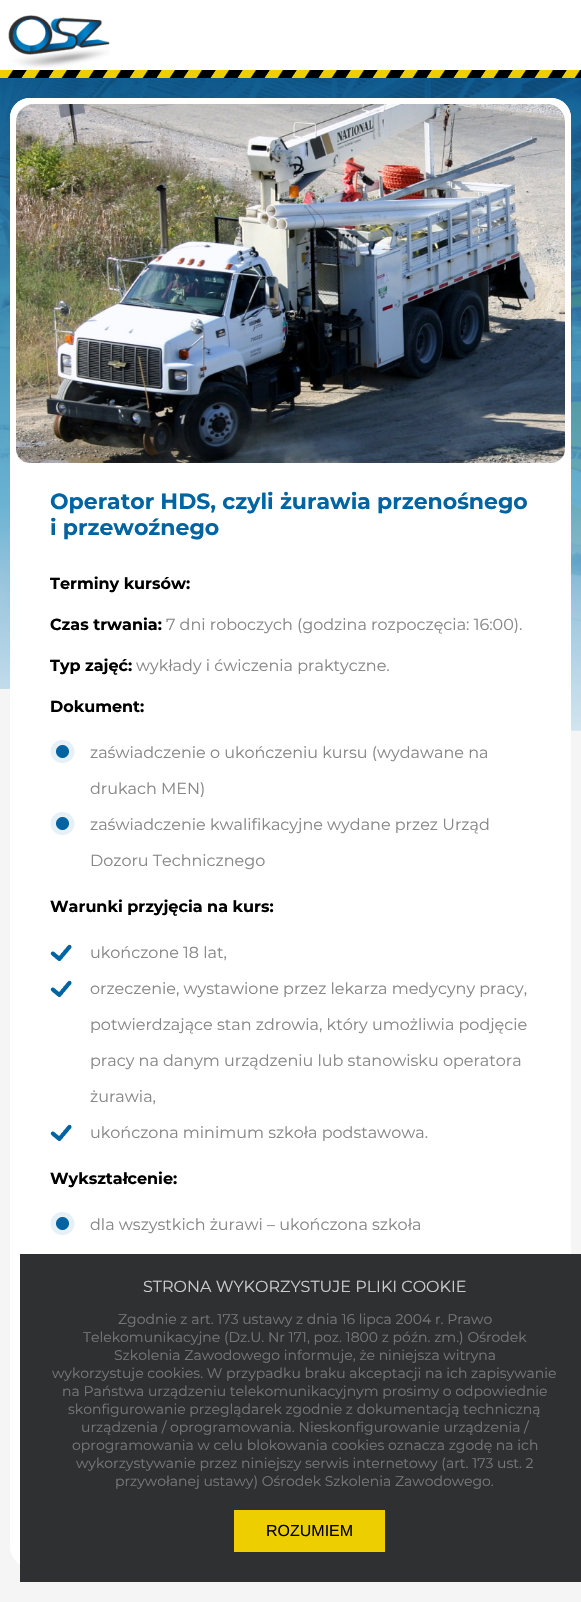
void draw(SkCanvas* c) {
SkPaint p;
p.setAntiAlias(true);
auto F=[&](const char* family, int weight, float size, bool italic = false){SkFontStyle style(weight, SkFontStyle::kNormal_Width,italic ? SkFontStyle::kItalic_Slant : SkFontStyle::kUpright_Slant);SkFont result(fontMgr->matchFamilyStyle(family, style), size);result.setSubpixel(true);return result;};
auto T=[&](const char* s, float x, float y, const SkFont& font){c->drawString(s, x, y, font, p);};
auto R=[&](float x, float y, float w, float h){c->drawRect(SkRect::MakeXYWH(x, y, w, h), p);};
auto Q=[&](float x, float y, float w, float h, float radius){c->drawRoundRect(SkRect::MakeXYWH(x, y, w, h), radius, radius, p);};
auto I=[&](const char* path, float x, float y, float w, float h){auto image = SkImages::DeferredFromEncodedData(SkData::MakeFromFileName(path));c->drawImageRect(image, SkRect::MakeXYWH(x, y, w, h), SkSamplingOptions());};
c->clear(0xfff5f5f5);
I("1.png",0,78,581,653);
p.setColor(0xffffffff);
R(0,0,581,70);
I("2.png",0,70,581,8);
I("3.png",8,15,102,53);
Q(10,98,561,1469,20);
c->drawRoundRect(SkRect::MakeXYWH(13,101,555,365),17,17,p);
p.setStroke(true);
p.setStrokeWidth(6);
c->drawRoundRect(SkRect::MakeXYWH(13,101,555,365),17,17,p);
I("4.png",16,104,549,359);
auto f1 = F("Montserrat",700,22);
p.setStroke(false);
p.setColor(0xff0064a2);
T("Operator HDS, czyli żurawia przenośnego",50,509,f1);
T("i przewoźnego",50,535,f1);
auto f2 = F("Montserrat",700,16);
p.setColor(0xff000000);
T("Terminy kursów:",50,589,f2);
T("Czas trwania:",50,630,f2);
auto f3 = F("Montserrat",400,16);
p.setColor(0xff878787);
T("7 dni roboczych (godzina rozpoczęcia: 16:00).",166,630,f3);
p.setColor(0xff000000);
T("Typ zajęć:",50,671,f2);
p.setColor(0xff878787);
T("wykłady i ćwiczenia praktyczne.",136,671,f3);
p.setColor(0xff000000);
T("Dokument:",50,712,f2);
I("5.png",50,740,25,23);
p.setColor(0xff878787);
T("zaświadczenie o ukończeniu kursu (wydawane na",90,758,f3);
T("drukach MEN)",90,794,f3);
I("5.png",50,812,25,23);
T("zaświadczenie kwalifikacyjne wydane przez Urząd",90,830,f3);
T("Dozoru Technicznego",90,866,f3);
p.setColor(0xff000000);
T("Warunki przyjęcia na kurs:",50,912,f2);
I("6.png",50,944,22,17);
p.setColor(0xff878787);
T("ukończone 18 lat,",90,958,f3);
I("6.png",50,980,22,17);
T("orzeczenie, wystawione przez lekarza medycyny pracy,",90,994,f3);
T("potwierdzające stan zdrowia, który umożliwia podjęcie",90,1030,f3);
T("pracy na danym urządzeniu lub stanowisku operatora",90,1066,f3);
T("żurawia,",90,1102,f3);
I("6.png",50,1124,22,17);
T("ukończona minimum szkoła podstawowa.",90,1138,f3);
p.setColor(0xff000000);
T("Wykształcenie:",50,1184,f2);
I("5.png",50,1212,25,23);
p.setColor(0xff878787);
T("dla wszystkich żurawi – ukończona szkoła",90,1230,f3);
p.setColor(0xff2f3031);
R(20,1254,561,328);
p.setColor(0xffcccccc);
T("STRONA WYKORZYSTUJE PLIKI COOKIE",143,1292,f3);
auto f4 = F("Montserrat",400,14);
p.setColor(0xff777777);
T("Zgodnie z art. 173 ustawy z dnia 16 lipca 2004 r. Prawo",118,1324,f4);
T("Telekomunikacyjne (Dz.U. Nr 171, poz. 1800 z późn. zm.) Ośrodek",83,1342,f4);
T("Szkolenia Zawodowego informuje, że niniejsza witryna",114,1360,f4);
T("wykorzystuje cookies. W przypadku braku akceptacji na ich zapisywanie",52,1378,f4);
T("na Państwa urządzeniu telekomunikacyjnym prosimy o odpowiednie",62,1396,f4);
T("skonfigurowanie przeglądarek zgodnie z dokumentacją techniczną",68,1414,f4);
T("urządzenia / oprogramowania. Nieskonfigurowanie urządzenia /",81,1432,f4);
T("oprogramowania w celu blokowania cookies oznacza zgodę na ich",72,1450,f4);
T("wykorzystywanie przez niniejszy serwis internetowy (art. 173 ust. 2",76,1468,f4);
T("przywołanej ustawy) Ośrodek Szkolenia Zawodowego.",115,1486,f4);
p.setColor(0xffedce00);
R(234,1510,151,42);
auto f5 = F("Liberation Sans",400,16);
p.setColor(0xff000000);
T("ROZUMIEM",266,1536,f5);
}
